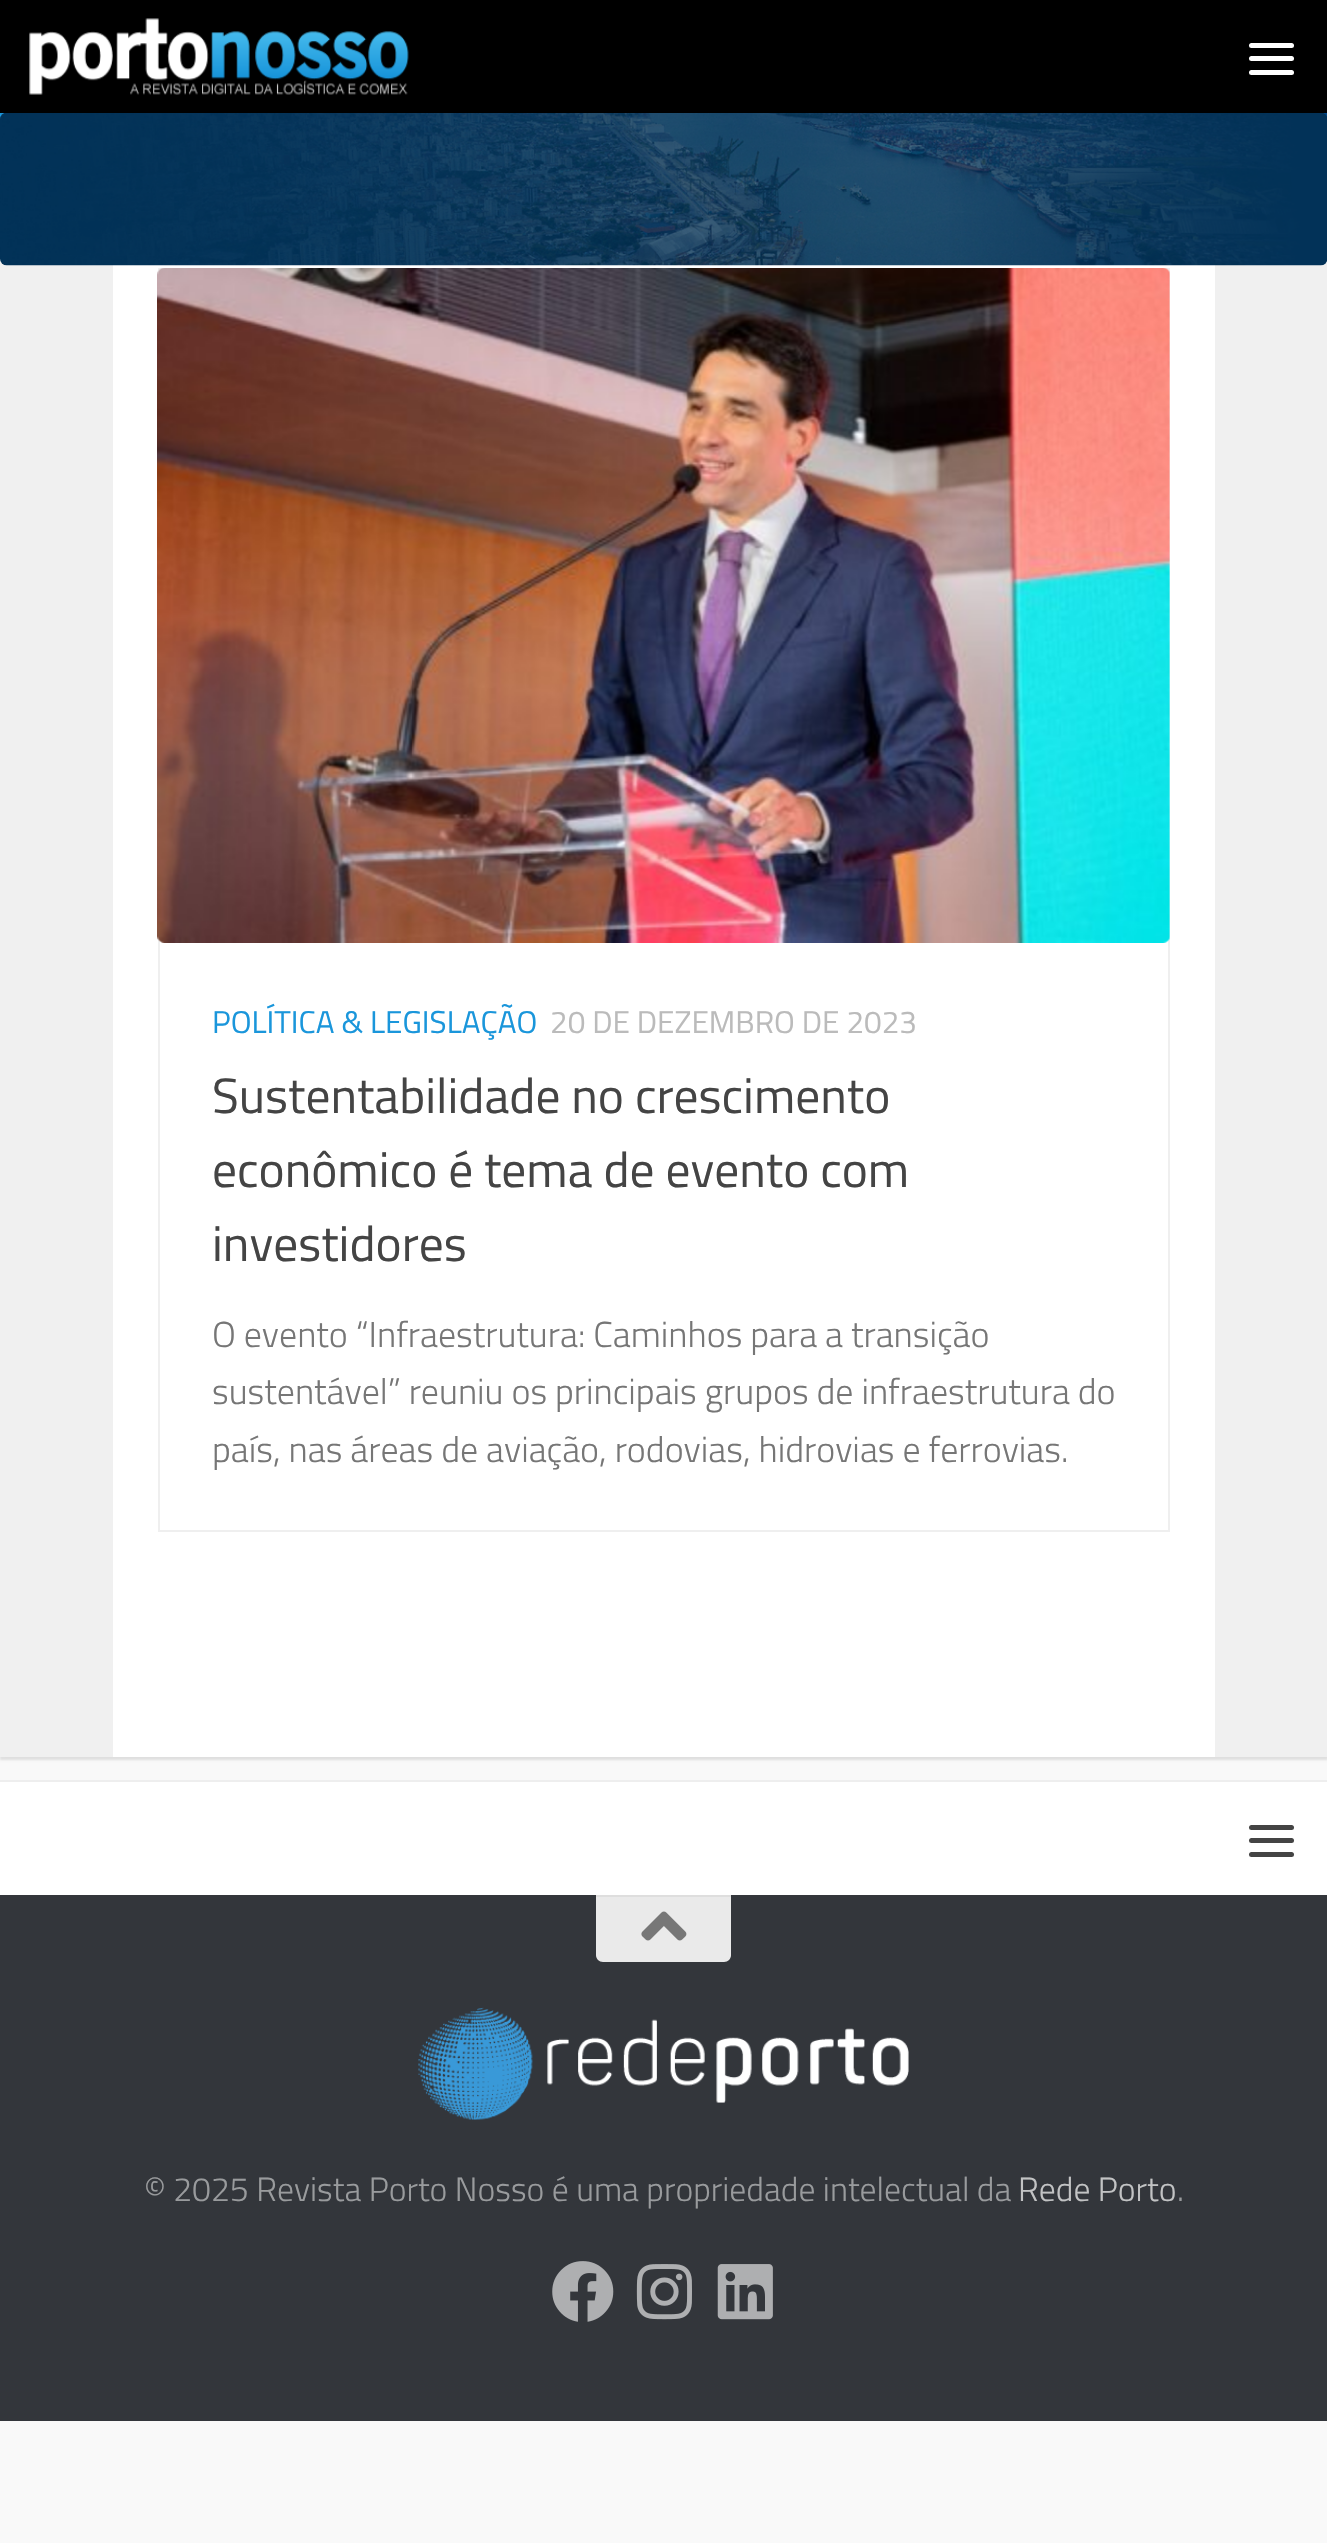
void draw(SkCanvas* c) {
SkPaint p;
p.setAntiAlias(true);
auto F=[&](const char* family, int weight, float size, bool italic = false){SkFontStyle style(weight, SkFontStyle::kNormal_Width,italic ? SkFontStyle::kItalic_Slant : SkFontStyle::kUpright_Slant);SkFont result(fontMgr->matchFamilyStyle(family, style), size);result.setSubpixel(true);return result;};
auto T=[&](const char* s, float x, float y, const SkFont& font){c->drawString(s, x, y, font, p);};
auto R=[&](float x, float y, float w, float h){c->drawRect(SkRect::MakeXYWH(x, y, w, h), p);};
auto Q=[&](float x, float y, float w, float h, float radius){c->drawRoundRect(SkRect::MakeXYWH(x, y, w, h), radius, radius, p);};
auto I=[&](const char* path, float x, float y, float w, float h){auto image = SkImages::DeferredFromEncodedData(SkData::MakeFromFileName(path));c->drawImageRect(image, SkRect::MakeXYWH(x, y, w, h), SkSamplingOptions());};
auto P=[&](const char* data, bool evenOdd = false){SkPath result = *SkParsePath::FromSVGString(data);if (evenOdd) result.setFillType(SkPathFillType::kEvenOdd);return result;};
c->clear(0xfff9f9f9);
p.setColor(0x1a000000);
p.setMaskFilter(SkMaskFilter::MakeBlur(kNormal_SkBlurStyle, 1));
c->drawRect(SkRect::MakeXYWH(0,115,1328,1645),p);
p.setMaskFilter(nullptr);
p.setColor(0xff000000);
R(0,0,1327,113);
I("1.png",29,18,380,77);
p.setColor(0xffffffff);
Q(1249,43,45,5,2.5);
Q(1249,56,45,5,2.5);
Q(1249,70,45,5,2.5);
R(113,265,1102,1492);
p.setColor(0xfff0f0f0);
R(0,259,113,1498);
p.setColor(0xff1a96db);
R(0,113,5,6);
p.setColor(0xff004789);
R(1323,113,4,4);
p.setColor(0xfff0f0f0);
R(1215,261,112,1496);
I("2.png",0,113,1327,153);
p.setStroke(true);
p.setStrokeWidth(2);
p.setColor(0xffefefef);
c->drawRect(SkRect::MakeXYWH(159,269,1010,1262),p);
I("3.png",157,268,1013,675);
auto f1 = F("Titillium",400,31.5);
p.setStroke(false);
p.setColor(0xff1a96db);
T("POLÍTICA & LEGISLAÇÃO",212,1033,f1);
p.setColor(0xffbbbbbb);
T("20 DE DEZEMBRO DE 2023",550,1033,f1);
auto f2 = F("Titillium",400,49.5);
p.setColor(0xff444444);
T("Sustentabilidade no crescimento",212,1113,f2);
T("econômico é tema de evento com",212,1187,f2);
T("investidores",212,1261,f2);
auto f3 = F("Titillium",300,36);
p.setColor(0xff767676);
T("O evento “Infraestrutura: Caminhos para a transição",212,1347,f3);
T("sustentável” reuniu os principais grupos de infraestrutura do",212,1404,f3);
T("país, nas áreas de aviação, rodovias, hidrovias e ferrovias.",212,1462,f3);
p.setColor(0xffffffff);
R(0,1782,1327,113);
p.setColor(0xffeeeeee);
R(0,1780,1327,2);
p.setColor(0xff444444);
Q(1249,1825,45,5,2.5);
Q(1249,1838,45,5,2.5);
Q(1249,1852,45,5,2.5);
p.setColor(0xff33363b);
R(0,1895,1327,526);
p.setColor(0xffeaeaea);
c->drawPath(P("M596 1895h135v60c0 4-3 7-7 7h-121c-4 0-7-3-7-7z"),p);
p.setColor(0xffdedede);
R(596,1895,135,2);
I("4.png",641,1911,46,30);
I("5.png",418,2007,491,113);
auto f4 = F("Titillium",300,33.75);
p.setColor(0xff999b9d);
T("© 2025 Revista Porto Nosso é uma propriedade intelectual da",144,2201,f4);
p.setColor(0xffc2c3c4);
T("Rede Porto",1018,2201,f4);
p.setColor(0xff999b9d);
T(".",1177,2201,f4);
I("6.png",552,2261,62,61);
I("7.png",636,2264,56,56);
I("8.png",717,2264,56,56);
}
